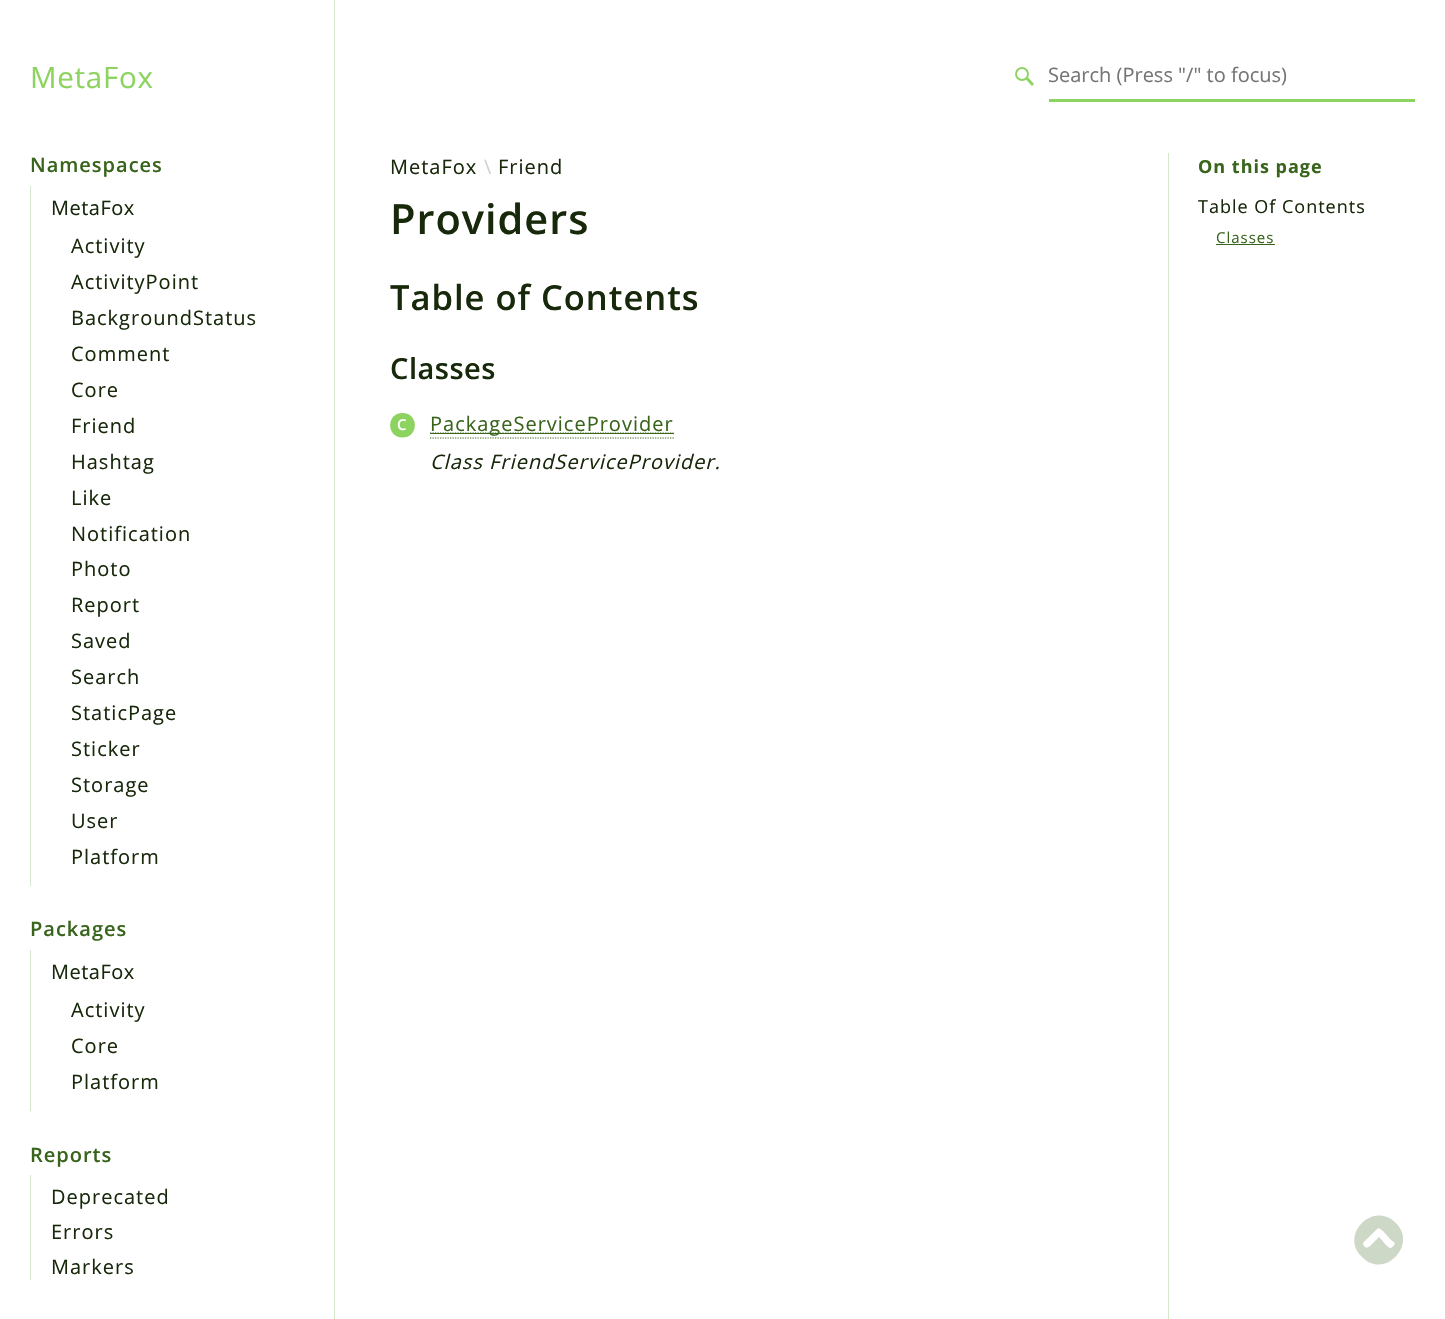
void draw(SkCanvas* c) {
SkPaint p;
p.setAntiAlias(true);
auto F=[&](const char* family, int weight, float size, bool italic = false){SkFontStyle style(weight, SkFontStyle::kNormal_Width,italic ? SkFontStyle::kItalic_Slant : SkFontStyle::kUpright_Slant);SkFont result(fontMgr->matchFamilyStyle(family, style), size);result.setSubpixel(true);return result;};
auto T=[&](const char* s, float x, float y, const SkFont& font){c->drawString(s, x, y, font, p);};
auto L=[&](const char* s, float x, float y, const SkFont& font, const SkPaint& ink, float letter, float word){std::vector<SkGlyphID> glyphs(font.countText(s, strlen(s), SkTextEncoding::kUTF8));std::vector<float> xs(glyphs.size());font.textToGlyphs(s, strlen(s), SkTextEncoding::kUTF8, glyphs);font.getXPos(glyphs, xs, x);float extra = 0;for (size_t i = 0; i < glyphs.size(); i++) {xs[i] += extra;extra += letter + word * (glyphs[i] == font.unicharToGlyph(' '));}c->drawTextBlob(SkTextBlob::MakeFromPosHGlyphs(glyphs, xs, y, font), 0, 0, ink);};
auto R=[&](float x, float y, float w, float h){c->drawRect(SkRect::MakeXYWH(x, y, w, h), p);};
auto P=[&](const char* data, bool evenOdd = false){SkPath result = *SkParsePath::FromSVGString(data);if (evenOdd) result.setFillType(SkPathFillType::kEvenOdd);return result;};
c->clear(0xffffffff);
p.setColor(0xffd6e7cb);
R(334,0,1,1319);
auto f1 = F("Open Sans",400,29.5);
p.setColor(0xff8dd35f);
L("MetaFox",30,88,f1,p,.75,0);
p.setStroke(true);
p.setStrokeWidth(1.9);
c->drawCircle(1022,74,6,p);
p.setStrokeWidth(2.9);
c->drawPath(P("M1027 78.5l6 6.5"),p);
p.setStroke(false);
R(1049,99,366,3);
auto f2 = F("Open Sans",400,20);
p.setColor(0xff757575);
T("Search (Press \"/\" to focus)",1048,82,f2);
auto f3 = F("Open Sans",600,20);
p.setColor(0xff38641b);
L("Namespaces",30,172,f3,p,1,0);
p.setColor(0xffd6e7cb);
R(30,186,1,700);
p.setColor(0xff17280b);
L("MetaFox",51,215,f2,p,.5,0);
L("Activity",71,253,f2,p,1,0);
L("ActivityPoint",71,289,f2,p,1,0);
L("BackgroundStatus",71,325,f2,p,1,0);
L("Comment",71,361,f2,p,1,0);
L("Core",71,397,f2,p,1,0);
L("Friend",71,433,f2,p,1,0);
L("Hashtag",71,469,f2,p,1,0);
L("Like",71,505,f2,p,1,0);
L("Notification",71,541,f2,p,1,0);
L("Photo",71,576,f2,p,1,0);
L("Report",71,612,f2,p,1,0);
L("Saved",71,648,f2,p,1,0);
L("Search",71,684,f2,p,1,0);
L("StaticPage",71,720,f2,p,1,0);
L("Sticker",71,756,f2,p,1,0);
L("Storage",71,792,f2,p,1,0);
L("User",71,828,f2,p,1,0);
L("Platform",71,864,f2,p,1,0);
p.setColor(0xff38641b);
L("Packages",30,936,f3,p,1,0);
p.setColor(0xffd6e7cb);
R(30,950,1,161);
p.setColor(0xff17280b);
L("MetaFox",51,979,f2,p,.5,0);
L("Activity",71,1017,f2,p,1,0);
L("Core",71,1053,f2,p,1,0);
L("Platform",71,1089,f2,p,1,0);
p.setColor(0xff38641b);
L("Reports",30,1162,f3,p,1,0);
p.setColor(0xffd6e7cb);
R(30,1175,1,105);
p.setColor(0xff17280b);
L("Deprecated",51,1204,f2,p,1,0);
L("Errors",51,1239,f2,p,1,0);
L("Markers",51,1274,f2,p,1,0);
L("MetaFox",390,174,f2,p,1,0);
p.setColor(0xffd1d1d1);
L("\\",484,174,f2,p,1,0);
p.setColor(0xff17280b);
L("Friend",498,174,f2,p,1,0);
auto f4 = F("Open Sans",600,41.5);
L("Providers",390,234,f4,p,1,0);
auto f5 = F("Open Sans",600,34.5);
L("Table of Contents",390,310,f5,p,1,0);
auto f6 = F("Open Sans",600,29);
L("Classes",390,379,f6,p,.5,0);
p.setColor(0xff8dd35f);
c->drawPath(P("M402.5 413c16.5 0 16.5 24.5 0 24.5c-16.5 0-16.5-24.5 0-24.5z"),p);
auto f7 = F("Open Sans",600,15);
p.setColor(0xffffffff);
L("C",397,430,f7,p,1,0);
p.setStroke(true);
p.setStrokeWidth(1.2);
p.setColor(0xff38641b);
p.setPathEffect(SkDashPathEffect::Make({{1.25f,1.25f}}, 0));
c->drawPath(P("M430 433h243.5"),p);
p.setPathEffect(nullptr);
p.setStroke(false);
R(430,433,244,1);
L("PackageServiceProvider",430,431,f2,p,1,0);
p.setStroke(true);
p.setPathEffect(SkDashPathEffect::Make({{1.25f,1.25f}}, 0));
c->drawPath(P("M430 438h244"),p);
p.setPathEffect(nullptr);
auto f8 = F("Open Sans",400,20,true);
p.setStroke(false);
p.setColor(0xff17280b);
L("Class FriendServiceProvider.",430,469,f8,p,1,0);
p.setColor(0xffd6e7cb);
R(1168,153,1,1166);
auto f9 = F("Open Sans",700,18);
p.setColor(0xff38641b);
L("On this page",1198,173,f9,p,1,0);
auto f10 = F("Open Sans",400,18);
p.setColor(0xff17280b);
L("Table Of Contents",1198,213,f10,p,1,0);
auto f11 = F("Open Sans",400,15);
p.setColor(0xff38641b);
L("Classes",1216,243,f11,p,1,0);
R(1216,244,59,1);
p.setColor(0xffcdd8c6);
c->drawPath(P("M1362 1257c-23-22 11-57 34-34c22 22-12 57-34 34zm15-28l-9 9c-4 4-7 5-3 9c3 2 6-2 7-3l7-7c2 2 9 11 11 11c2 0 3-2 4-3c2-2-1-4-3-5l-8-9c-2-1-4-4-6-2z"),p);
}
